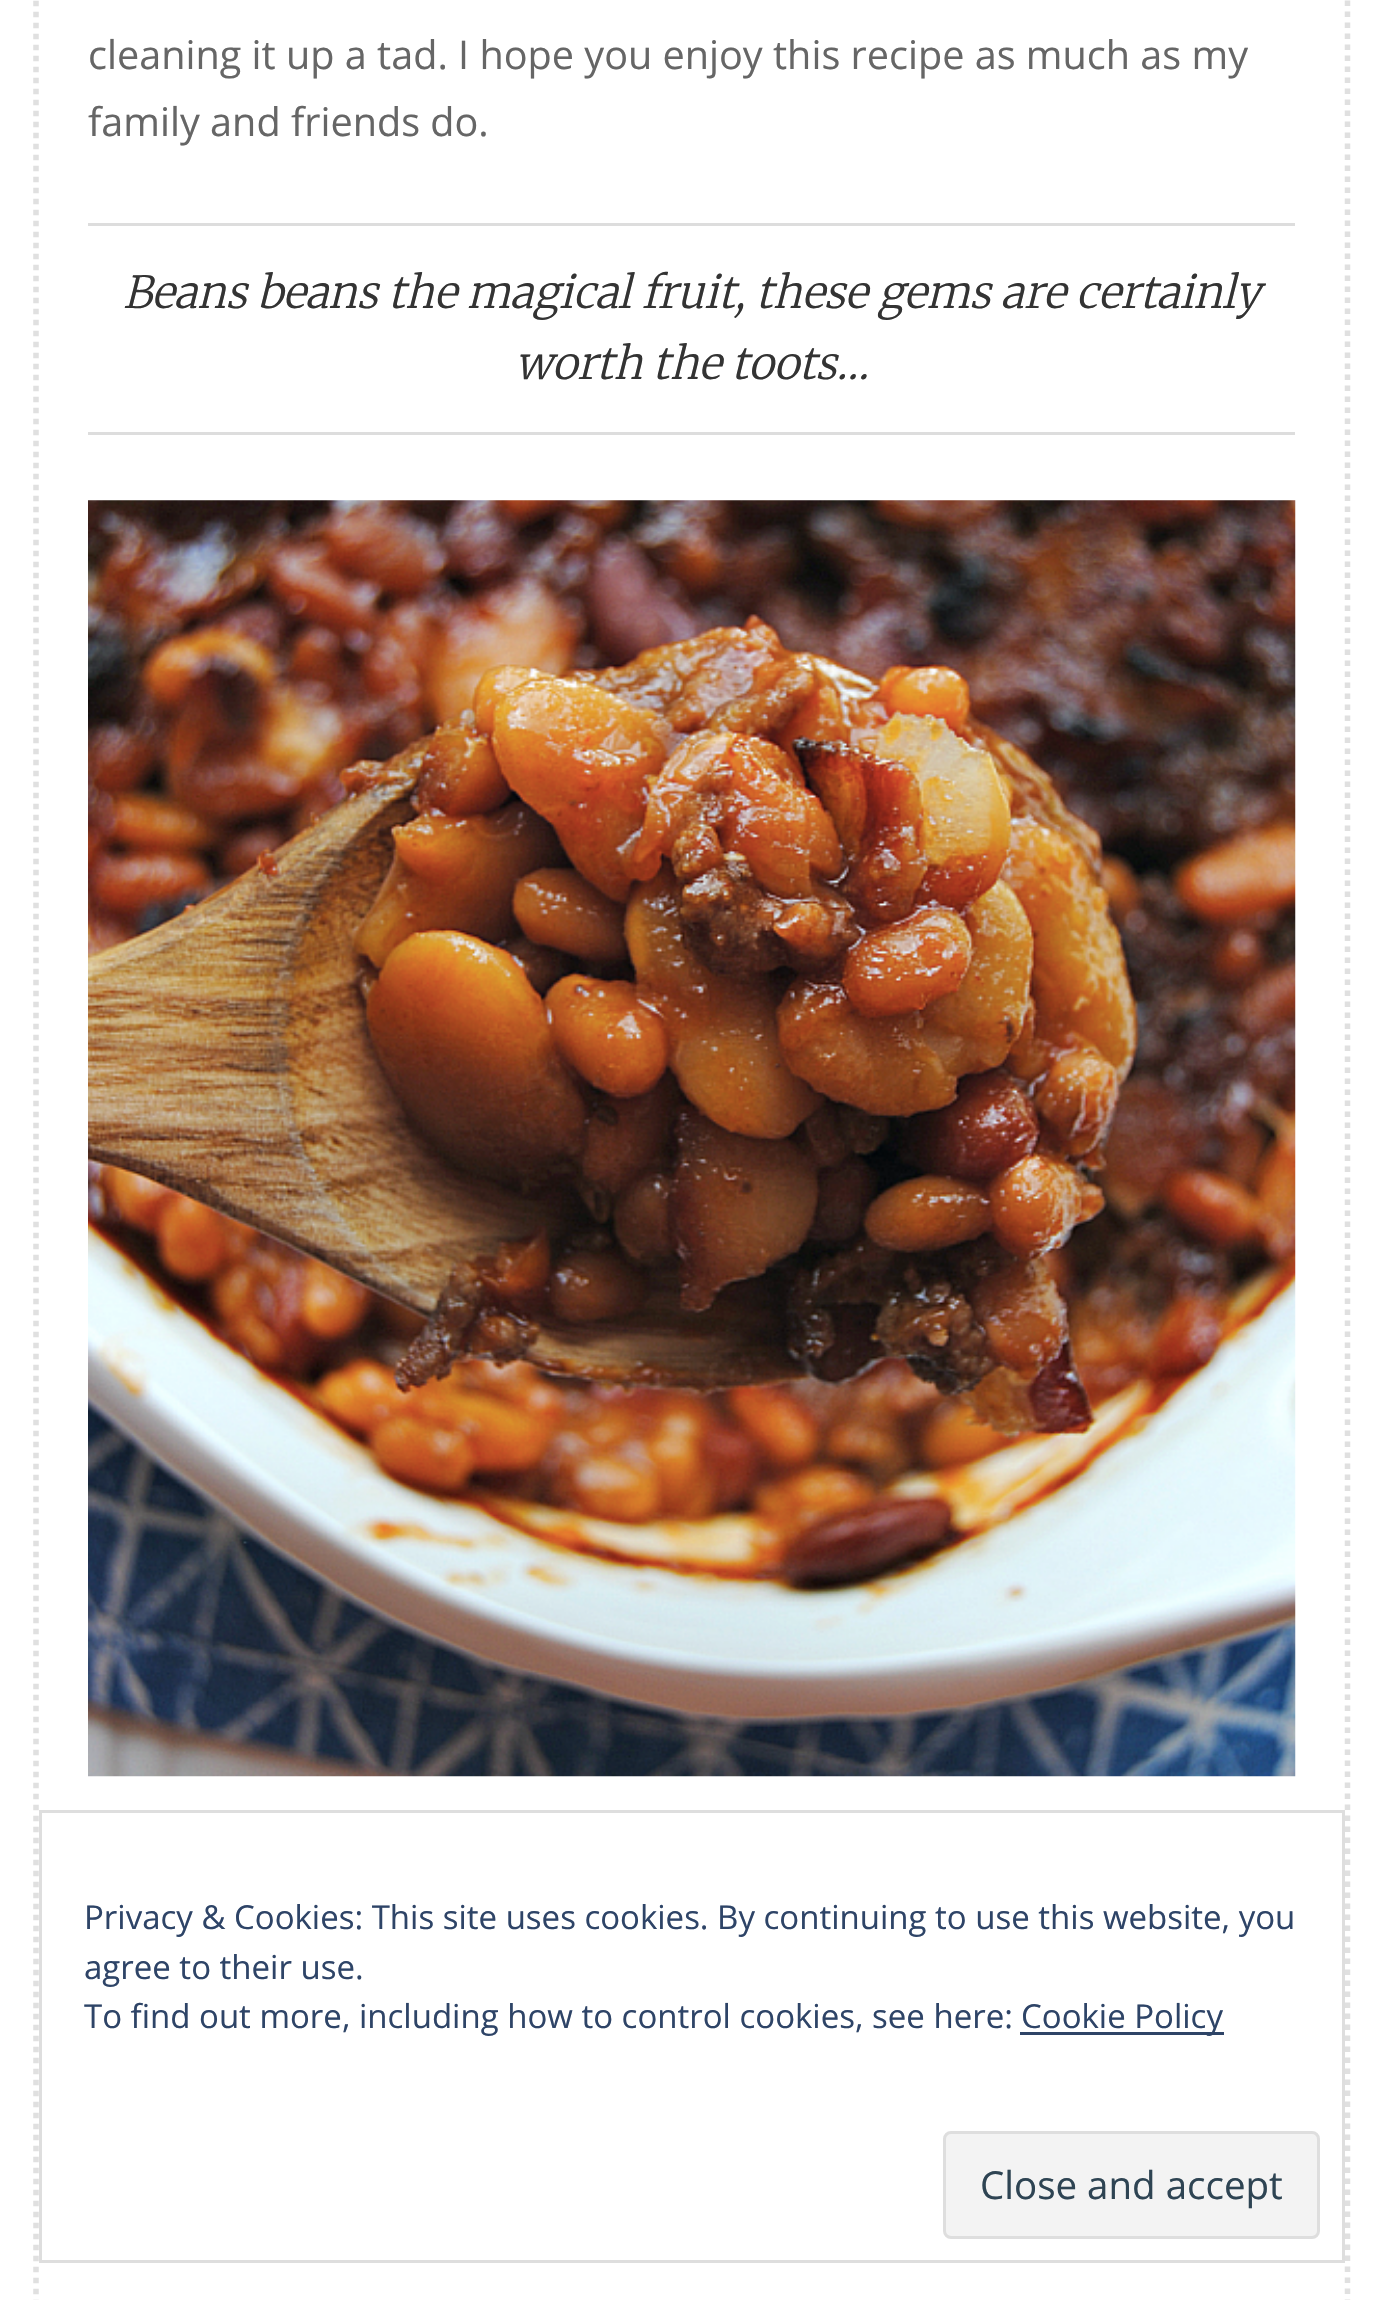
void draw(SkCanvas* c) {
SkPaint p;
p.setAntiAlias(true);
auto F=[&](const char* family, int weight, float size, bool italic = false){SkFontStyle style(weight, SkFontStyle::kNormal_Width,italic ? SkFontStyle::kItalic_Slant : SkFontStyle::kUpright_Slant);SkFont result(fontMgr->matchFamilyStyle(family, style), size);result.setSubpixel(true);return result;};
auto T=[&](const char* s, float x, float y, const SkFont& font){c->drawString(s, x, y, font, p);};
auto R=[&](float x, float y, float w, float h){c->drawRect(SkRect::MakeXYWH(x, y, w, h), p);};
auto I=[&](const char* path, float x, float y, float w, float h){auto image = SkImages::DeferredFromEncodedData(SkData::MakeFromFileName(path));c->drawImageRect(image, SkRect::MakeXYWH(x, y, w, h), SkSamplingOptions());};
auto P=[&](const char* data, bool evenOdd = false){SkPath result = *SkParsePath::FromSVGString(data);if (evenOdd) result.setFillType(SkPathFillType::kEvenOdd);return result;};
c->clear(0xffffffff);
p.setStroke(true);
p.setStrokeWidth(5.5);
p.setColor(0xffe0e0e0);
p.setPathEffect(SkDashPathEffect::Make({{5.5f,5.5f}}, 0));
c->drawPath(P("M49.5-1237.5h1284.5c7.5 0 13.5 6 13.5 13.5v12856.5c0 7.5-6 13.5-13.5 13.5h-1284.5c-7.5 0-13.5-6-13.5-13.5v-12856.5c0-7.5 6-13.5 13.5-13.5z"),p);
p.setPathEffect(nullptr);
auto f1 = F("Open Sans",400,39.6);
p.setStroke(false);
p.setColor(0xff666666);
T("cleaning it up a tad. I hope you enjoy this recipe as much as my",88,69,f1);
T("family and friends do.",88,136,f1);
p.setColor(0xffdddddd);
R(88,223,1207,3);
R(88,432,1207,3);
auto f2 = F("Merriweather",300,44,true);
p.setColor(0xff333333);
T("Beans beans the magical fruit, these gems are certainly",123,308,f2);
T("worth the toots…",515,379,f2);
I("1.png",88,500,1208,1277);
p.setStroke(true);
p.setStrokeWidth(3);
p.setColor(0xffdedede);
c->drawRect(SkRect::MakeXYWH(40.5,1811.5,1303,450),p);
auto f3 = F("Open Sans",400,33);
p.setStroke(false);
p.setColor(0xff2e4467);
T("Privacy & Cookies: This site uses cookies. By continuing to use this website, you",84,1929,f3);
T("agree to their use.",84,1979,f3);
T("To find out more, including how to control cookies, see here:",84,2028,f3);
R(1020,2032,204,3);
T("Cookie Policy",1021,2028,f3);
p.setColor(0xfff3f3f3);
c->drawRoundRect(SkRect::MakeXYWH(944.5,2132.5,374,105),6.5,6.5,p);
p.setStroke(true);
p.setColor(0xffdedede);
c->drawRoundRect(SkRect::MakeXYWH(944.5,2132.5,374,105),6.5,6.5,p);
auto f4 = F("Open Sans",400,38.5);
p.setStroke(false);
p.setColor(0xff2e4453);
T("Close and accept",980,2199,f4);
}
